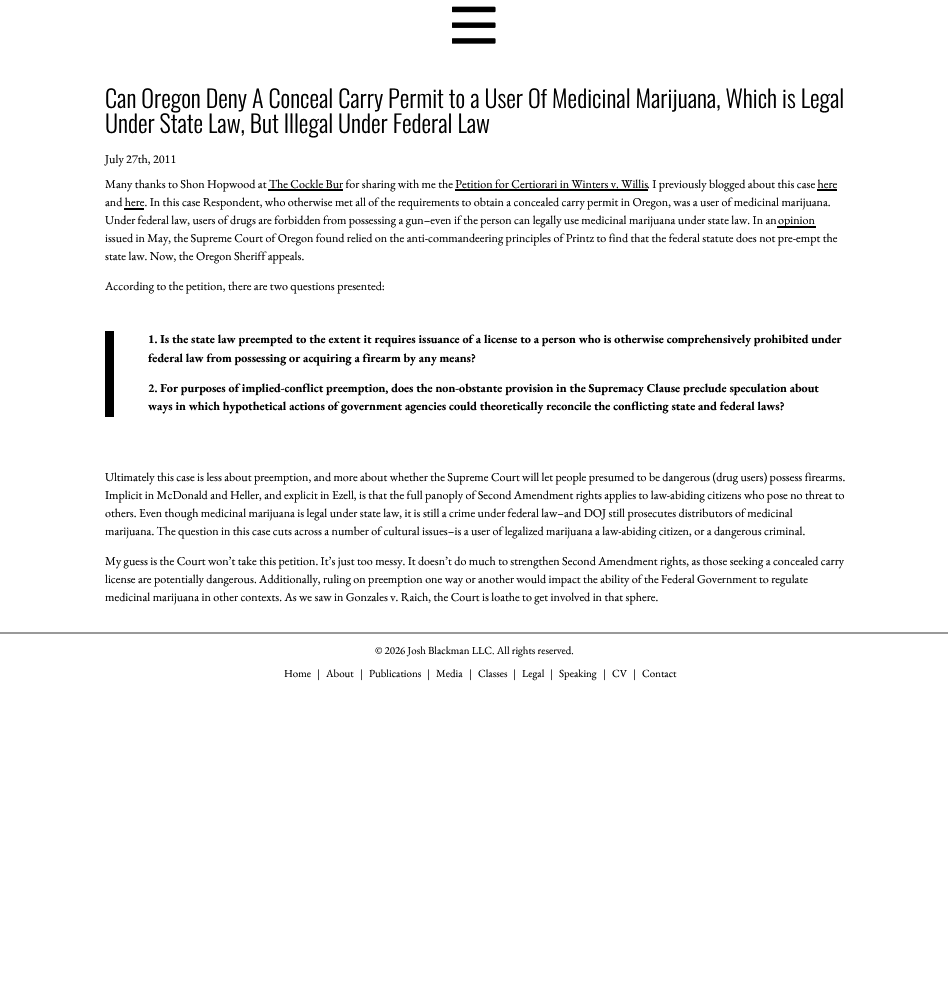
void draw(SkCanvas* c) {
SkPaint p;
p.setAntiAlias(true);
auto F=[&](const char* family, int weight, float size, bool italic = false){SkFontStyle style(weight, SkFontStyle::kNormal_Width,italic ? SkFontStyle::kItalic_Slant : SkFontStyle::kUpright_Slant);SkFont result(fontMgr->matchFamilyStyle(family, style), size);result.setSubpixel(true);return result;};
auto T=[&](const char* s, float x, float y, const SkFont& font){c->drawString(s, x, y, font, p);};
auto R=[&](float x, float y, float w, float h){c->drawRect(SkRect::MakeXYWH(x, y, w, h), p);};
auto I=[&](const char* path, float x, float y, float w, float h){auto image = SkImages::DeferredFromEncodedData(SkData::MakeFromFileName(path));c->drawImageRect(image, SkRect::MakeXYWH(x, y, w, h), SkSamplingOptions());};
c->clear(0xffffffff);
I("1.png",452,6,44,38);
auto f1 = F("Oswald",300,24.2);
p.setColor(0xff000000);
T("Can Oregon Deny A Conceal Carry Permit to a User Of Medicinal Marijuana, Which is Legal",105,108,f1);
T("Under State Law, But Illegal Under Federal Law",105,133,f1);
auto f2 = F("EB Garamond",400,12.1);
T("July 27th, 2011",105,163,f2);
T("Many thanks to Shon Hopwood at The Cockle Bur for sharing with me the Petition for Certiorari in Winters v. Willis",105,188,f2);
R(455,189,193,2);
T(". I previously blogged about this case here",647,188,f2);
R(268,189,75,2);
R(817,189,20,2);
T("and here. In this case Respondent, who otherwise met all of the requirements to obtain a concealed carry permit in Oregon, was a user of medicinal marijuana.",105,206,f2);
R(124,208,20,2);
T("Under federal law, users of drugs are forbidden from possessing a gun–even if the person can legally use medicinal marijuana under state law. In an",105,224,f2);
R(777,226,39,2);
T("opinion",778,224,f2);
T("issued in May, the Supreme Court of Oregon found relied on the anti-commandeering principles of Printz to find that the federal statute does not pre-empt the",105,242,f2);
T("state law. Now, the Oregon Sheriff appeals.",105,260,f2);
T("According to the petition, there are two questions presented:",105,290,f2);
R(105,331,9,86);
auto f3 = F("EB Garamond",700,12.1);
T("1. Is the state law preempted to the extent it requires issuance of a license to a person who is otherwise comprehensively prohibited under",148,343,f3);
T("federal law from possessing or acquiring a firearm by any means?",148,362,f3);
T("2. For purposes of implied-conflict preemption, does the non-obstante provision in the Supremacy Clause preclude speculation about",148,392,f3);
T("ways in which hypothetical actions of government agencies could theoretically reconcile the conflicting state and federal laws?",148,410,f3);
T("Ultimately this case is less about preemption, and more about whether the Supreme Court will let people presumed to be dangerous (drug users) possess firearms.",105,481,f2);
T("Implicit in McDonald and Heller, and explicit in Ezell, is that the full panoply of Second Amendment rights applies to law-abiding citizens who pose no threat to",105,499,f2);
T("others. Even though medicinal marijuana is legal under state law, it is still a crime under federal law–and DOJ still prosecutes distributors of medicinal",105,517,f2);
T("marijuana. The question in this case cuts across a number of cultural issues–is a user of legalized marijuana a law-abiding citizen, or a dangerous criminal.",105,535,f2);
T("My guess is the Court won’t take this petition. It’s just too messy. It doesn’t do much to strengthen Second Amendment rights, as those seeking a concealed carry",105,565,f2);
T("license are potentially dangerous. Additionally, ruling on preemption one way or another would impact the ability of the Federal Government to regulate",105,583,f2);
T("medicinal marijuana in other contexts. As we saw in Gonzales v. Raich, the Court is loathe to get involved in that sphere.",105,601,f2);
p.setColor(0xff999999);
R(0,632,948,2);
auto f4 = F("EB Garamond",400,10.9);
p.setColor(0xff000000);
T("© 2026 Josh Blackman LLC. All rights reserved.",375,654,f4);
T("Home",284,677,f4);
T("|",317,677,f4);
T("About",326,677,f4);
T("|",360,677,f4);
T("Publications",369,677,f4);
T("|",427,677,f4);
T("Media",436,677,f4);
T("|",469,677,f4);
T("Classes",478,677,f4);
T("|",513,677,f4);
T("Legal",522,677,f4);
T("|",550,677,f4);
T("Speaking",559,677,f4);
T("|",603,677,f4);
T("CV",612,677,f4);
T("|",633,677,f4);
T("Contact",642,677,f4);
}
